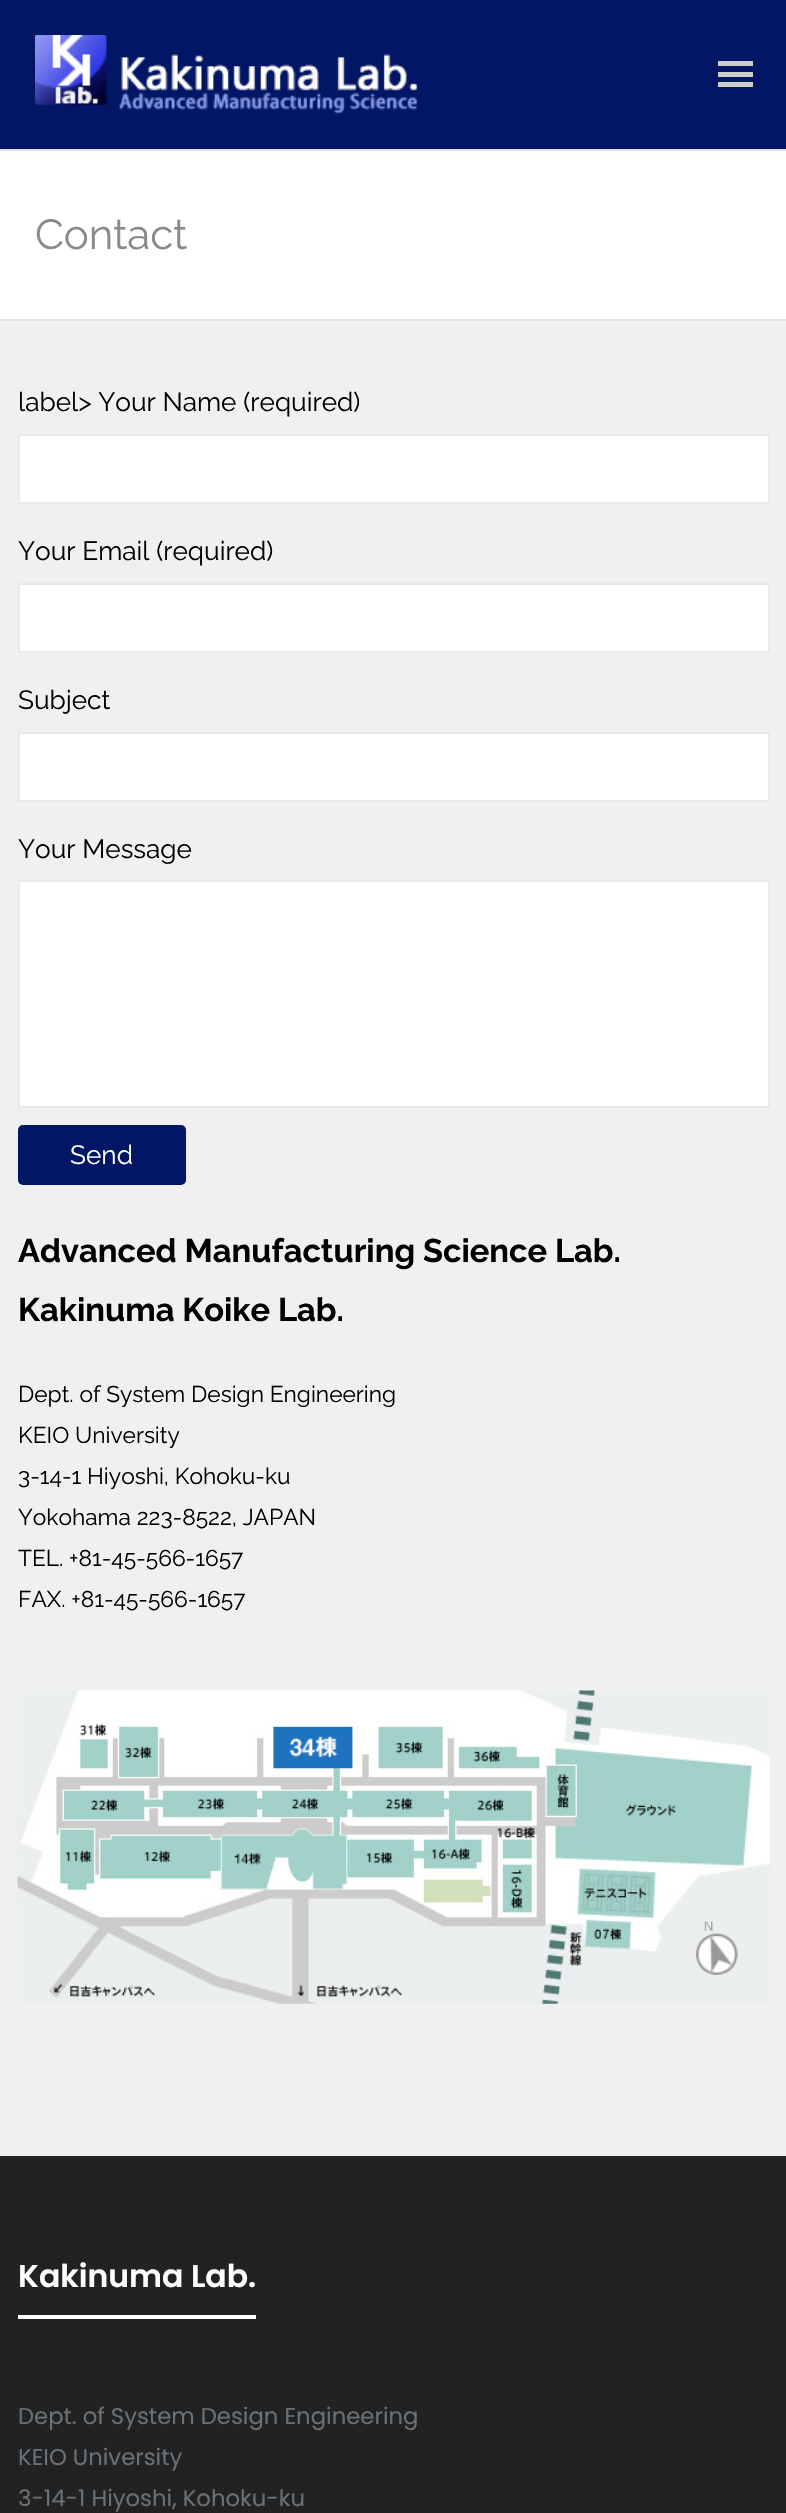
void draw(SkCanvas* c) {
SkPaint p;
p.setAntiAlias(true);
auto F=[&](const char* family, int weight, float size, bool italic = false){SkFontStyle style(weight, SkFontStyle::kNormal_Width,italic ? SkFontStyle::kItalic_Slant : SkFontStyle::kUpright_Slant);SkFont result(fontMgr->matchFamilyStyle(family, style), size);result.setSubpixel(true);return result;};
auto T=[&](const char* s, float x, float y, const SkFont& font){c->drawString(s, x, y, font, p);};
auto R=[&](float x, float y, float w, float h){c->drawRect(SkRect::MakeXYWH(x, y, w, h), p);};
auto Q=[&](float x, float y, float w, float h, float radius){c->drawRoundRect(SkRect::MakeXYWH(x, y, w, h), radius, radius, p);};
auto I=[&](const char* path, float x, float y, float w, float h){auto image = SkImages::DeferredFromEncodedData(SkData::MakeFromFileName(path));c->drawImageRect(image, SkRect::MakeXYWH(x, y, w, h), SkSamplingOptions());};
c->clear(0xfff0f0f0);
p.setColor(0xff011664);
R(0,0,786,149);
I("1.png",35,35,383,79);
p.setColor(0xffcccccc);
R(718,61,35,5);
R(718,72,35,5);
R(718,82,35,5);
p.setColor(0xffffffff);
R(0,151,786,168);
p.setColor(0xffe4e4e4);
R(0,149,786,2);
R(0,319,786,2);
auto f1 = F("Raleway",400,42);
p.setColor(0xff898a8c);
T("Contact",35,249,f1);
auto f2 = F("Raleway",400,26.25);
p.setColor(0xff000000);
T("label> Your Name (required)",18,411,f2);
p.setColor(0xffffffff);
c->drawRect(SkRect::MakeXYWH(19,435,750,68),p);
p.setStroke(true);
p.setStrokeWidth(2);
p.setColor(0xffe9e9e9);
c->drawRect(SkRect::MakeXYWH(19,435,750,68),p);
p.setStroke(false);
p.setColor(0xff000000);
T("Your Email (required)",18,560,f2);
p.setColor(0xffffffff);
c->drawRect(SkRect::MakeXYWH(19,584,750,68),p);
p.setStroke(true);
p.setColor(0xffe9e9e9);
c->drawRect(SkRect::MakeXYWH(19,584,750,68),p);
p.setStroke(false);
p.setColor(0xff000000);
T("Subject",18,709,f2);
p.setColor(0xffffffff);
c->drawRect(SkRect::MakeXYWH(19,733,750,68),p);
p.setStroke(true);
p.setColor(0xffe9e9e9);
c->drawRect(SkRect::MakeXYWH(19,733,750,68),p);
p.setStroke(false);
p.setColor(0xff000000);
T("Your Message",18,858,f2);
p.setColor(0xffffffff);
c->drawRect(SkRect::MakeXYWH(19,881,750,226),p);
p.setStroke(true);
p.setColor(0xffe9e9e9);
c->drawRect(SkRect::MakeXYWH(19,881,750,226),p);
p.setStroke(false);
p.setColor(0xff011664);
Q(18,1125,168,60,5);
p.setColor(0xffffffff);
T("Send",70,1164,f2);
auto f3 = F("Raleway",700,32.7);
p.setColor(0xff000000);
T("Advanced Manufacturing Science Lab.",18,1262,f3);
T("Kakinuma Koike Lab.",18,1321,f3);
auto f4 = F("Raleway",400,22.75);
T("Dept. of System Design Engineering",18,1402,f4);
T("KEIO University",18,1443,f4);
T("3-14-1 Hiyoshi, Kohoku-ku",18,1484,f4);
T("Yokohama 223-8522, JAPAN",18,1525,f4);
T("TEL. +81-45-566-1657",18,1566,f4);
T("FAX. +81-45-566-1657",18,1607,f4);
I("2.png",17,1690,753,314);
p.setColor(0xff202224);
R(0,2156,786,357);
auto f5 = F("Poppins",600,31.5);
p.setColor(0xffffffff);
T("Kakinuma Lab.",18,2287,f5);
R(18,2315,238,4);
auto f6 = F("Poppins",400,22.75);
p.setColor(0xff6d7072);
T("Dept. of System Design Engineering",18,2424,f6);
T("KEIO University",18,2465,f6);
T("3-14-1 Hiyoshi, Kohoku-ku",18,2506,f6);
}
